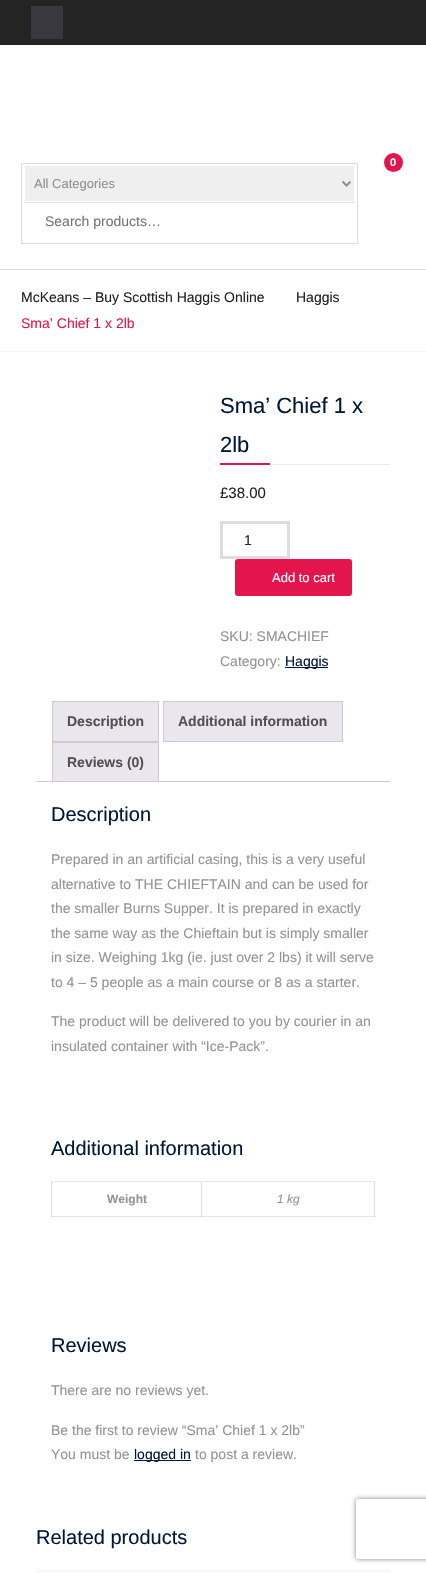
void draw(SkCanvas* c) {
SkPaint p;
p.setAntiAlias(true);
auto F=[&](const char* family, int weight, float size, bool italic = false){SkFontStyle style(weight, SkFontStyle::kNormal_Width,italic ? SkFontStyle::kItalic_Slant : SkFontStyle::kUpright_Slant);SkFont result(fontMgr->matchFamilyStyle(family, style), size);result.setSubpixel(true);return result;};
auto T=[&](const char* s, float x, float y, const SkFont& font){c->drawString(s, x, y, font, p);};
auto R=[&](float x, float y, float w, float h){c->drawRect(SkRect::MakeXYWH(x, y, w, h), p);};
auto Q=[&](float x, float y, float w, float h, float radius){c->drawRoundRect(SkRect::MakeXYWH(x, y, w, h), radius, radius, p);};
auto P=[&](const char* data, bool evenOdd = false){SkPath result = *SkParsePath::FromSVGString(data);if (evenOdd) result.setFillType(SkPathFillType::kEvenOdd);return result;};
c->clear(0xffffffff);
p.setColor(0xff242424);
R(0,0,426,45);
p.setColor(0xff38383e);
R(31,6,32,33);
p.setColor(0xffdddddd);
R(0,269,426,1);
p.setColor(0xffe4144d);
c->drawCircle(393.5,162.5,9.5,p);
auto f1 = F("Liberation Sans",700,11);
p.setColor(0xffffffff);
T("0",390,166,f1);
p.setStroke(true);
p.setStrokeWidth(1);
p.setColor(0xffdddddd);
c->drawRect(SkRect::MakeXYWH(21.5,163.5,336,80),p);
p.setStroke(false);
p.setColor(0xffefefef);
R(25,166,329,35);
p.setStroke(true);
p.setStrokeWidth(2);
p.setColor(0xff8e8e8e);
c->drawPath(P("M342.5 181.5l4 4l4-4"),p);
auto f2 = F("Liberation Sans",400,13);
p.setStroke(false);
T("All Categories",34,188,f2);
p.setColor(0xffe0e0e0);
R(25,202,329,1);
auto f3 = F("Liberation Sans",400,14);
p.setColor(0xff757575);
T("Search products…",45,226,f3);
p.setColor(0xfff5f5f5);
R(0,351,426,1);
p.setColor(0xff222222);
T("McKeans – Buy Scottish Haggis Online",21,302,f3);
T("Haggis",296,302,f3);
p.setColor(0xffe4144d);
T("Sma’ Chief 1 x 2lb",21,328,f3);
p.setColor(0xffebe9eb);
R(270,464,120,1);
auto f4 = F("Liberation Sans",400,22);
p.setColor(0xff001837);
T("Sma’ Chief 1 x",220,413,f4);
T("2lb",220,452,f4);
p.setColor(0xffe4144d);
R(220,463,50,2);
auto f5 = F("Liberation Sans",400,15);
p.setColor(0xff222222);
T("£38.00",220,498,f5);
p.setStroke(true);
p.setStrokeWidth(3);
p.setColor(0xffdddddd);
c->drawRect(SkRect::MakeXYWH(221.5,522.5,67,35),p);
p.setStroke(false);
p.setColor(0xff222222);
T("1",244,545,f3);
p.setColor(0xffe4144d);
Q(235,559,117,37,3);
p.setColor(0xffffffff);
T("Add to cart",272,582,f2);
p.setColor(0xff949393);
T("SKU: SMACHIEF",220,641,f3);
T("Category:",220,666,f3);
p.setColor(0xff001837);
R(285,667,43,1);
T("Haggis",285,666,f3);
p.setColor(0xffe9e6ed);
c->drawRect(SkRect::MakeXYWH(52.5,701.5,106,40),p);
p.setStroke(true);
p.setStrokeWidth(1);
p.setColor(0xffcfc8d8);
c->drawRect(SkRect::MakeXYWH(52.5,701.5,106,40),p);
auto f6 = F("Liberation Sans",700,14);
p.setStroke(false);
p.setColor(0xff515151);
T("Description",67,726,f6);
p.setColor(0xffe9e6ed);
c->drawRect(SkRect::MakeXYWH(163.5,701.5,179,40),p);
p.setStroke(true);
p.setColor(0xffcfc8d8);
c->drawRect(SkRect::MakeXYWH(163.5,701.5,179,40),p);
p.setStroke(false);
p.setColor(0xff515151);
T("Additional information",178,726,f6);
p.setColor(0xffe9e6ed);
c->drawRect(SkRect::MakeXYWH(52.5,742.5,106,39),p);
p.setStroke(true);
p.setColor(0xffcfc8d8);
c->drawRect(SkRect::MakeXYWH(52.5,742.5,106,39),p);
p.setStroke(false);
p.setColor(0xff515151);
T("Reviews (0)",67,767,f6);
p.setColor(0xffcfc8d8);
R(36,781,354,1);
auto f7 = F("Liberation Sans",400,20);
p.setColor(0xff001837);
T("Description",51,821,f7);
p.setColor(0xff949393);
T("Prepared in an artificial casing, this is a very useful",51,864,f3);
T("alternative to THE CHIEFTAIN and can be used for",51,889,f3);
T("the smaller Burns Supper. It is prepared in exactly",51,913,f3);
T("the same way as the Chieftain but is simply smaller",51,938,f3);
T("in size. Weighing 1kg (ie. just over 2 lbs) it will serve",51,962,f3);
T("to 4 – 5 people as a main course or 8 as a starter.",51,987,f3);
T("The product will be delivered to you by courier in an",51,1026,f3);
T("insulated container with “Ice-Pack”.",51,1051,f3);
p.setColor(0xffe6e6e6);
R(51,1216,324,1);
p.setColor(0xff001837);
T("Additional information",51,1155,f7);
p.setColor(0xffe6e6e6);
R(51,1181,324,1);
p.setColor(0xffdddddd);
R(51,1181,1,36);
auto f8 = F("Liberation Sans",700,12);
p.setColor(0xff949393);
T("Weight",107,1203,f8);
p.setColor(0xffdddddd);
R(374,1181,1,36);
p.setColor(0xffc7c7c7);
R(374,1216,1,1);
p.setColor(0xffdddddd);
R(201,1181,1,36);
p.setColor(0xffc7c7c7);
R(201,1216,1,1);
auto f9 = F("Liberation Sans",400,12,true);
p.setColor(0xff949393);
T("1 kg",277,1203,f9);
p.setColor(0xff001837);
T("Reviews",51,1352,f7);
p.setColor(0xff949393);
T("There are no reviews yet.",51,1395,f3);
T("Be the first to review “Sma’ Chief 1 x 2lb”",51,1435,f3);
T("You must be",51,1459,f3);
p.setColor(0xff001837);
R(134,1460,57,1);
T("logged in",134,1459,f3);
p.setColor(0xff949393);
T("to post a review.",195,1459,f3);
p.setColor(0xff001837);
T("Related products",36,1544,f7);
p.setColor(0xfffbfbfb);
c->drawRect(SkRect::MakeXYWH(36.5,1570.5,353,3),p);
p.setStroke(true);
p.setColor(0xfff5f5f5);
c->drawRect(SkRect::MakeXYWH(36.5,1570.5,353,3),p);
c->save();
c->clipPath(P("M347 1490h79v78h-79zm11 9h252c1 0 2 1 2 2v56c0 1-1 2-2 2h-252c-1 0-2-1-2-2v-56c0-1 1-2 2-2z",true),true);
p.setStroke(false);
p.setColor(0xff808080);
p.setMaskFilter(SkMaskFilter::MakeBlur(kNormal_SkBlurStyle, 2.5));
c->drawRoundRect(SkRect::MakeXYWH(356,1499,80,60),2,2,p);
p.setMaskFilter(nullptr);
c->restore();
}
